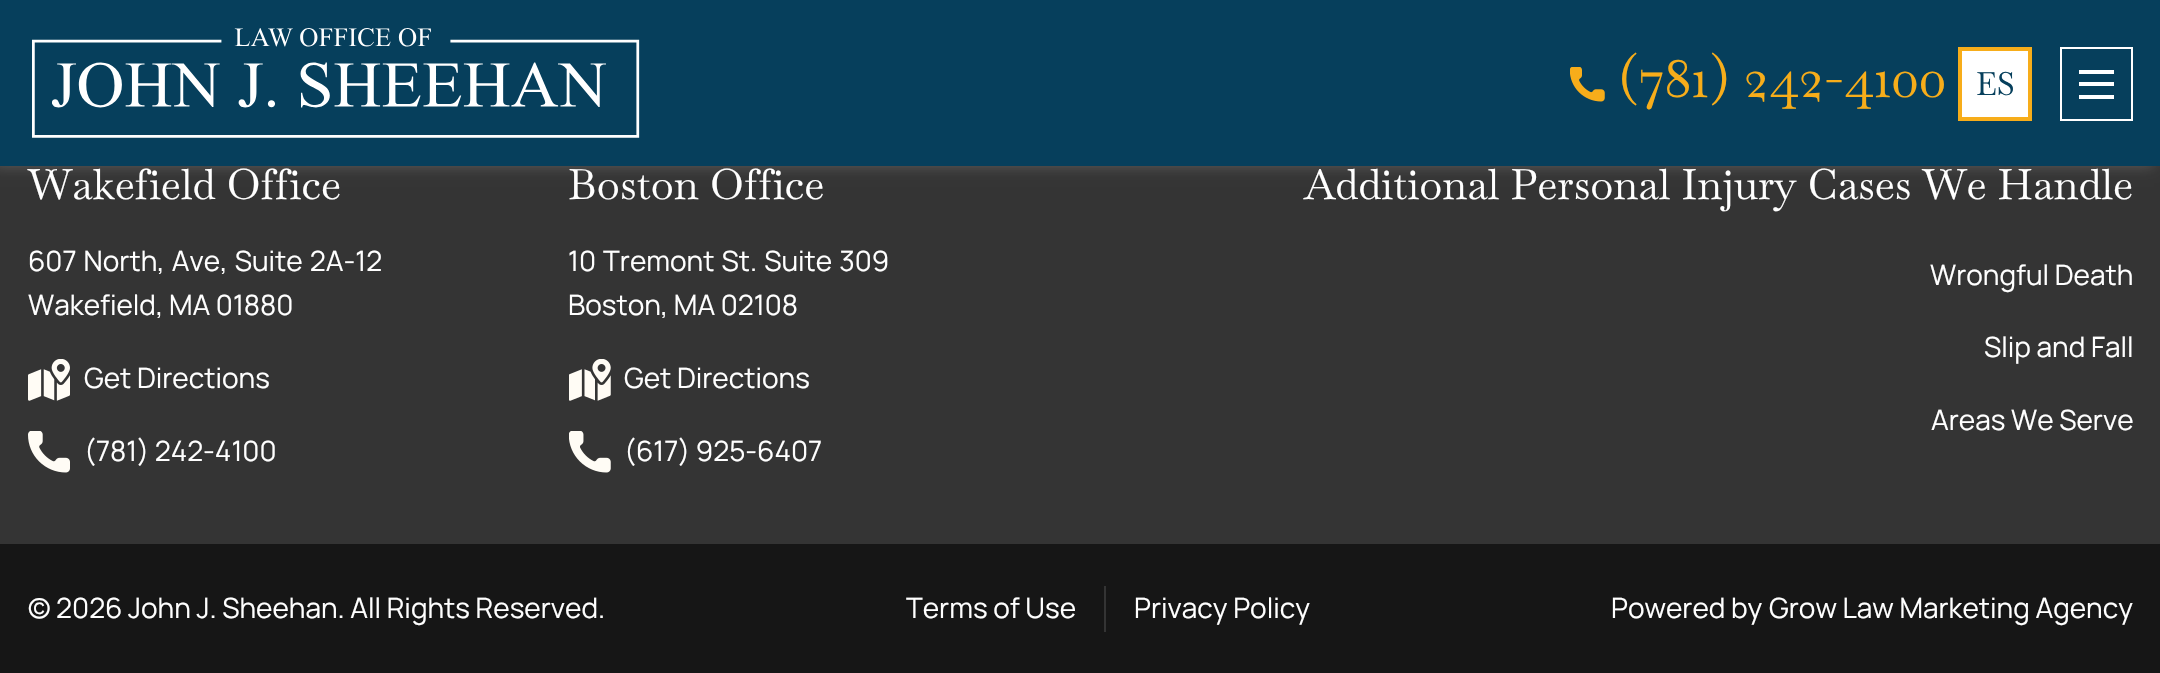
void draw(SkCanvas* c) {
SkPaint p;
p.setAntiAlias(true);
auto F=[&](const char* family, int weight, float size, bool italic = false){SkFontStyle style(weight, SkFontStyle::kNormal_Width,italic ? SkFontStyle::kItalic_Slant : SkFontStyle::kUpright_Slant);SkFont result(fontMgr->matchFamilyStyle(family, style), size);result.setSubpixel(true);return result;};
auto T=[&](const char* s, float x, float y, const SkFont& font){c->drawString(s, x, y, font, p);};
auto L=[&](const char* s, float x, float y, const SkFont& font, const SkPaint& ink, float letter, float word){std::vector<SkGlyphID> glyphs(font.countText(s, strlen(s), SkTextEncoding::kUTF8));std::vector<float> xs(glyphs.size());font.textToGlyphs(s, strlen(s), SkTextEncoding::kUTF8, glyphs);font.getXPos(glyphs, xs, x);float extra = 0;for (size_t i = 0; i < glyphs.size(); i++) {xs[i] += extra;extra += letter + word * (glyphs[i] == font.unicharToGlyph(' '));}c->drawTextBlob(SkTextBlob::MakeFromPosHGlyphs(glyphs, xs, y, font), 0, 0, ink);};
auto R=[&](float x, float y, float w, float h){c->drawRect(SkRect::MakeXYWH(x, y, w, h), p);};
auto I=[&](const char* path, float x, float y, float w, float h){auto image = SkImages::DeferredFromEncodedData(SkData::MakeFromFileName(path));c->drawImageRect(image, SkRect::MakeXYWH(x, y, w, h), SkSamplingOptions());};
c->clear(0xff343434);
p.setColor(0x33ffffff);
p.setMaskFilter(SkMaskFilter::MakeBlur(kNormal_SkBlurStyle, 7));
c->drawRect(SkRect::MakeXYWH(-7,0,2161,166),p);
p.setMaskFilter(nullptr);
p.setColor(0xff063f5c);
R(0,0,2160,166);
I("1.png",32,28,608,110);
I("2.png",1570,67,35,35);
auto f1 = F("Baskervville SC",400,56);
p.setColor(0xfff7ad1a);
T("(781) 242-4100",1619,97,f1);
p.setColor(0xffffffff);
c->drawRect(SkRect::MakeXYWH(1960,49,70,70),p);
p.setStroke(true);
p.setStrokeWidth(4);
p.setColor(0xfff7ad1a);
c->drawRect(SkRect::MakeXYWH(1960,49,70,70),p);
auto f2 = F("Baskervville",400,32);
p.setStroke(false);
p.setColor(0xff063f5c);
T("ES",1976,95,f2);
p.setStroke(true);
p.setStrokeWidth(2);
p.setColor(0xffffffff);
c->drawRect(SkRect::MakeXYWH(2061,48,71,72),p);
p.setStroke(false);
R(2079,70,35,4);
R(2079,82,35,4);
R(2079,95,35,4);
auto f3 = F("Baskervville",400,42);
T("Wakefield Office",28,199,f3);
auto f4 = F("Manrope",400,28);
L("607 North, Ave, Suite 2A-12",28,271,f4,p,0,1.5);
T("Wakefield, MA 01880",28,315,f4);
I("3.png",28,359,42,42);
T("Get Directions",84,388,f4);
I("4.png",28,431,42,42);
T("(781) 242-4100",84,461,f4);
T("Boston Office",568,199,f3);
L("10 Tremont St. Suite 309",568,271,f4,p,0,1.5);
T("Boston, MA 02108",568,315,f4);
I("5.png",569,359,42,42);
T("Get Directions",624,388,f4);
I("6.png",569,431,42,42);
T("(617) 925-6407",624,461,f4);
T("Additional Personal Injury Cases We Handle",1304,199,f3);
T("Wrongful Death",1930,285,f4);
T("Slip and Fall",1984,357,f4);
T("Areas We Serve",1931,430,f4);
p.setColor(0xff161616);
R(0,544,2160,129);
p.setColor(0xffffffff);
T("© 2026 John J. Sheehan. All Rights Reserved.",28,618,f4);
p.setColor(0xff343434);
R(1104,586,2,46);
p.setColor(0xffffffff);
T("Terms of Use",906,618,f4);
T("Privacy Policy",1134,618,f4);
T("Powered by",1611,618,f4);
T("Grow Law Marketing Agency",1769,618,f4);
}
